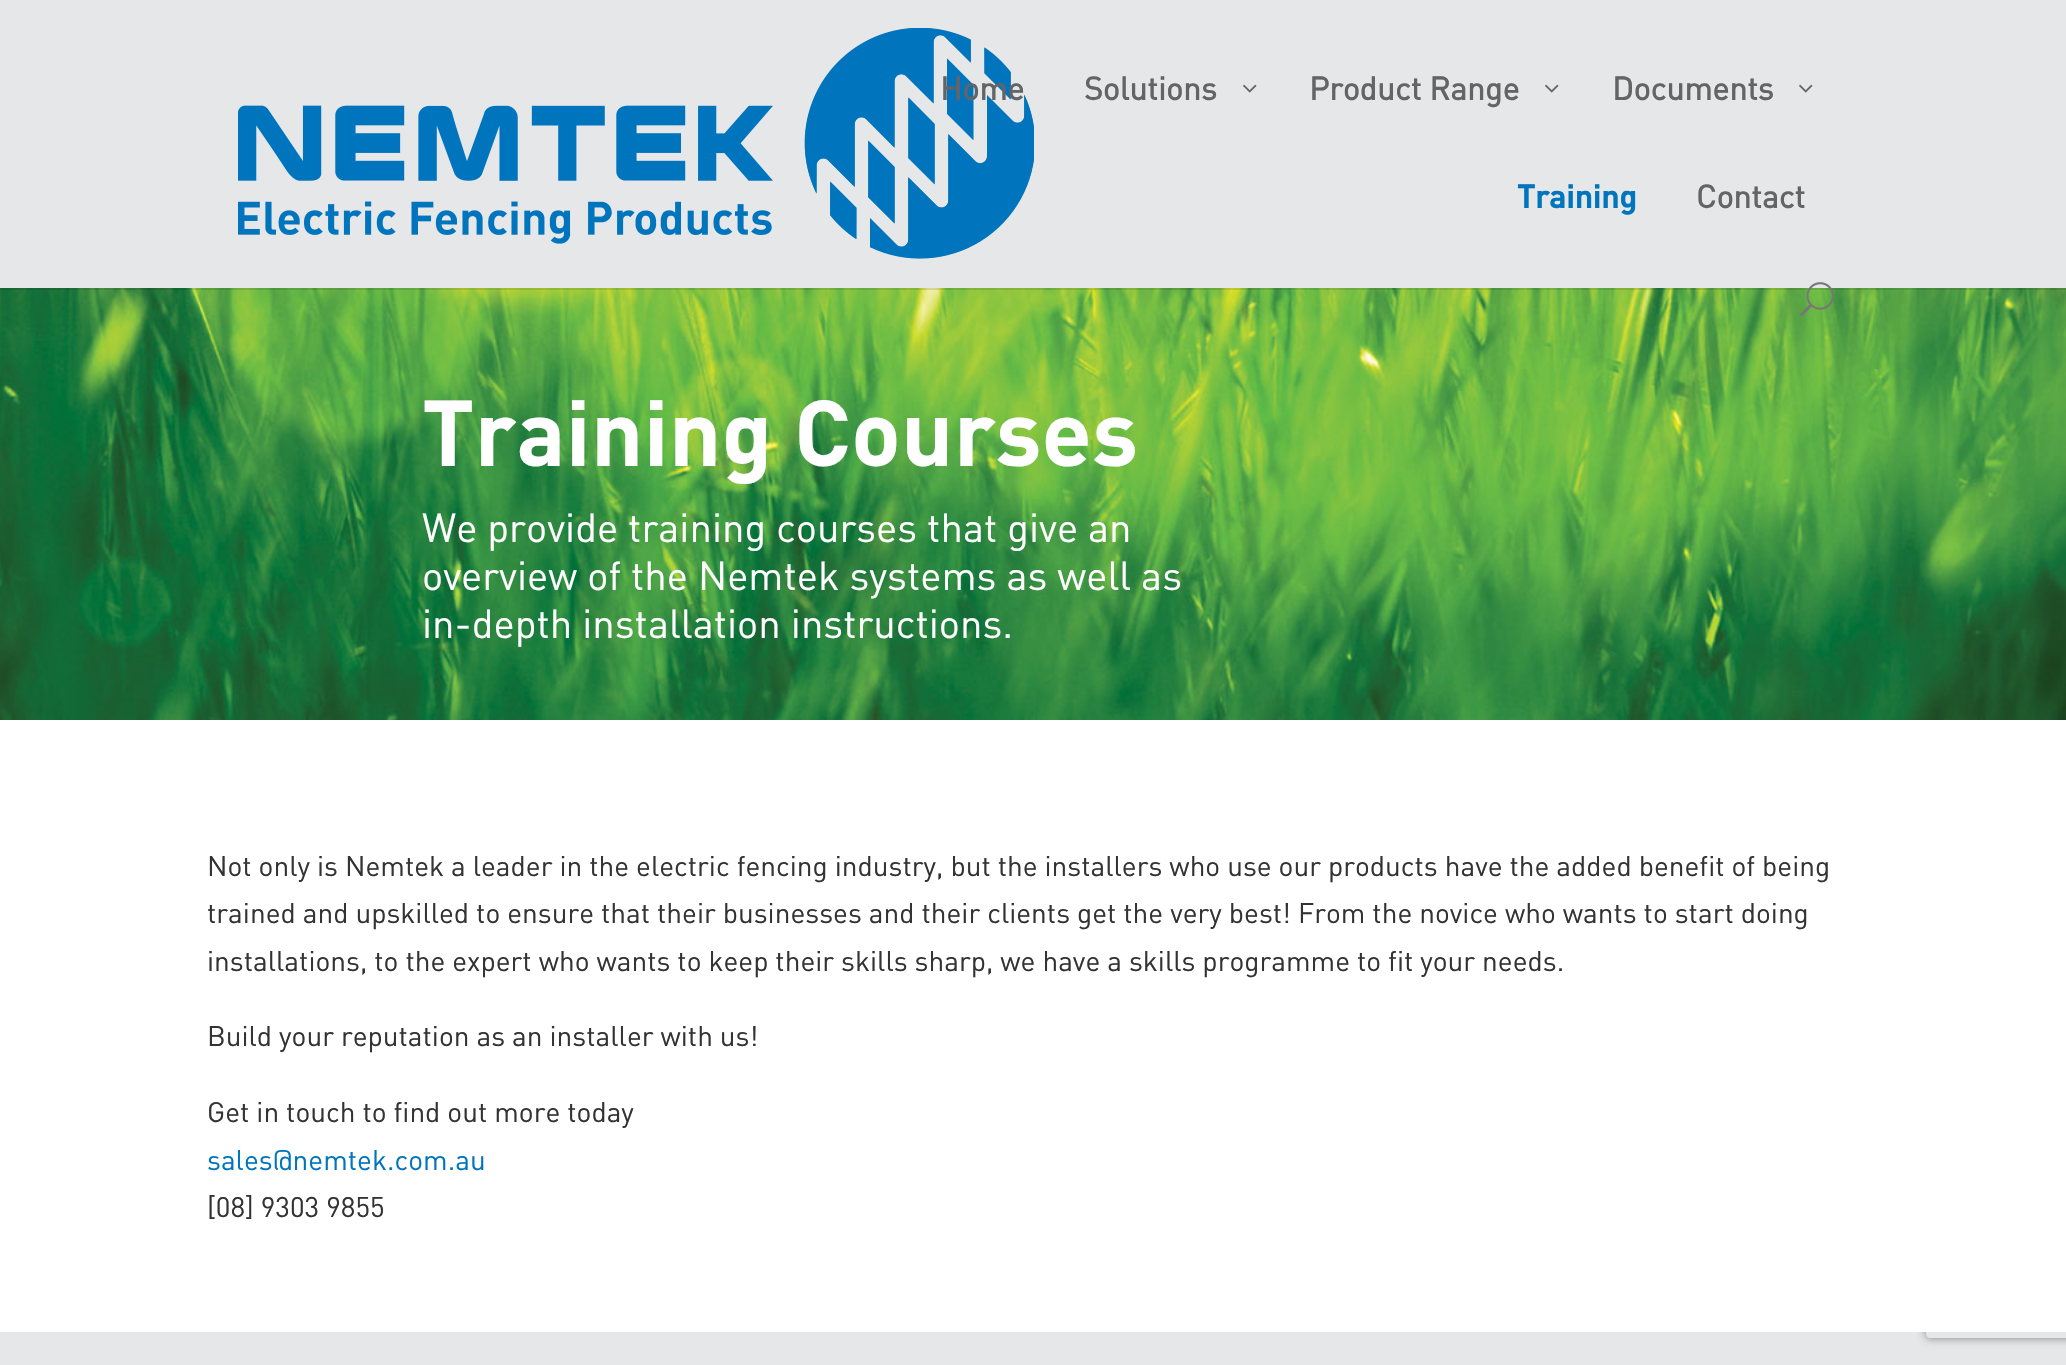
void draw(SkCanvas* c) {
SkPaint p;
p.setAntiAlias(true);
auto F=[&](const char* family, int weight, float size, bool italic = false){SkFontStyle style(weight, SkFontStyle::kNormal_Width,italic ? SkFontStyle::kItalic_Slant : SkFontStyle::kUpright_Slant);SkFont result(fontMgr->matchFamilyStyle(family, style), size);result.setSubpixel(true);return result;};
auto T=[&](const char* s, float x, float y, const SkFont& font){c->drawString(s, x, y, font, p);};
auto R=[&](float x, float y, float w, float h){c->drawRect(SkRect::MakeXYWH(x, y, w, h), p);};
auto I=[&](const char* path, float x, float y, float w, float h){auto image = SkImages::DeferredFromEncodedData(SkData::MakeFromFileName(path));c->drawImageRect(image, SkRect::MakeXYWH(x, y, w, h), SkSamplingOptions());};
auto P=[&](const char* data, bool evenOdd = false){SkPath result = *SkParsePath::FromSVGString(data);if (evenOdd) result.setFillType(SkPathFillType::kEvenOdd);return result;};
c->clear(0xffe6e7e8);
I("4.png",0,288,2066,432);
p.setColor(0x1a000000);
R(0,288,2066,2);
I("1.png",238,28,796,231);
auto f1 = F("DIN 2",700,32);
p.setColor(0xff636466);
T("Home",940,100,f1);
T("Solutions",1084,100,f1);
I("2.png",1243,84,14,9);
T("Product Range",1309,100,f1);
I("2.png",1545,84,14,9);
T("Documents",1612,100,f1);
I("2.png",1799,84,14,9);
auto f2 = F("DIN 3",700,32);
p.setColor(0xff0075be);
T("Training",1517,208,f2);
p.setColor(0xff636466);
T("Contact",1696,208,f1);
I("3.png",1800,282,34,35);
auto f3 = F("DIN",700,92);
p.setColor(0xffffffff);
T("Training Courses",422,466,f3);
auto f4 = F("DIN",400,40);
T("We provide training courses that give an",422,542,f4);
T("overview of the Nemtek systems as well as",422,590,f4);
T("in-depth installation instructions.",422,638,f4);
c->save();
c->clipPath(P("M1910 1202h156v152h-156zm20 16h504c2 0 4 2 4 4v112c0 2-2 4-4 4h-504c-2 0-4-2-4-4v-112c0-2 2-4 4-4z",true),true);
p.setColor(0xff808080);
p.setMaskFilter(SkMaskFilter::MakeBlur(kNormal_SkBlurStyle, 5));
c->drawRoundRect(SkRect::MakeXYWH(1926,1218,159,120),4,4,p);
p.setMaskFilter(nullptr);
c->restore();
p.setColor(0xffffffff);
R(0,720,2066,612);
auto f5 = F("DIN",400,28);
p.setColor(0xff333333);
T("Not only is Nemtek a leader in the electric fencing industry, but the installers who use our products have the added benefit of being",207,876,f5);
T("trained and upskilled to ensure that their businesses and their clients get the very best! From the novice who wants to start doing",207,923,f5);
T("installations, to the expert who wants to keep their skills sharp, we have a skills programme to fit your needs.",207,971,f5);
T("Build your reputation as an installer with us!",207,1046,f5);
T("Get in touch to find out more today",207,1122,f5);
p.setColor(0xff0075be);
T("sales@nemtek.com.au",207,1170,f5);
p.setColor(0xff333333);
T("[08] 9303 9855",207,1217,f5);
}
